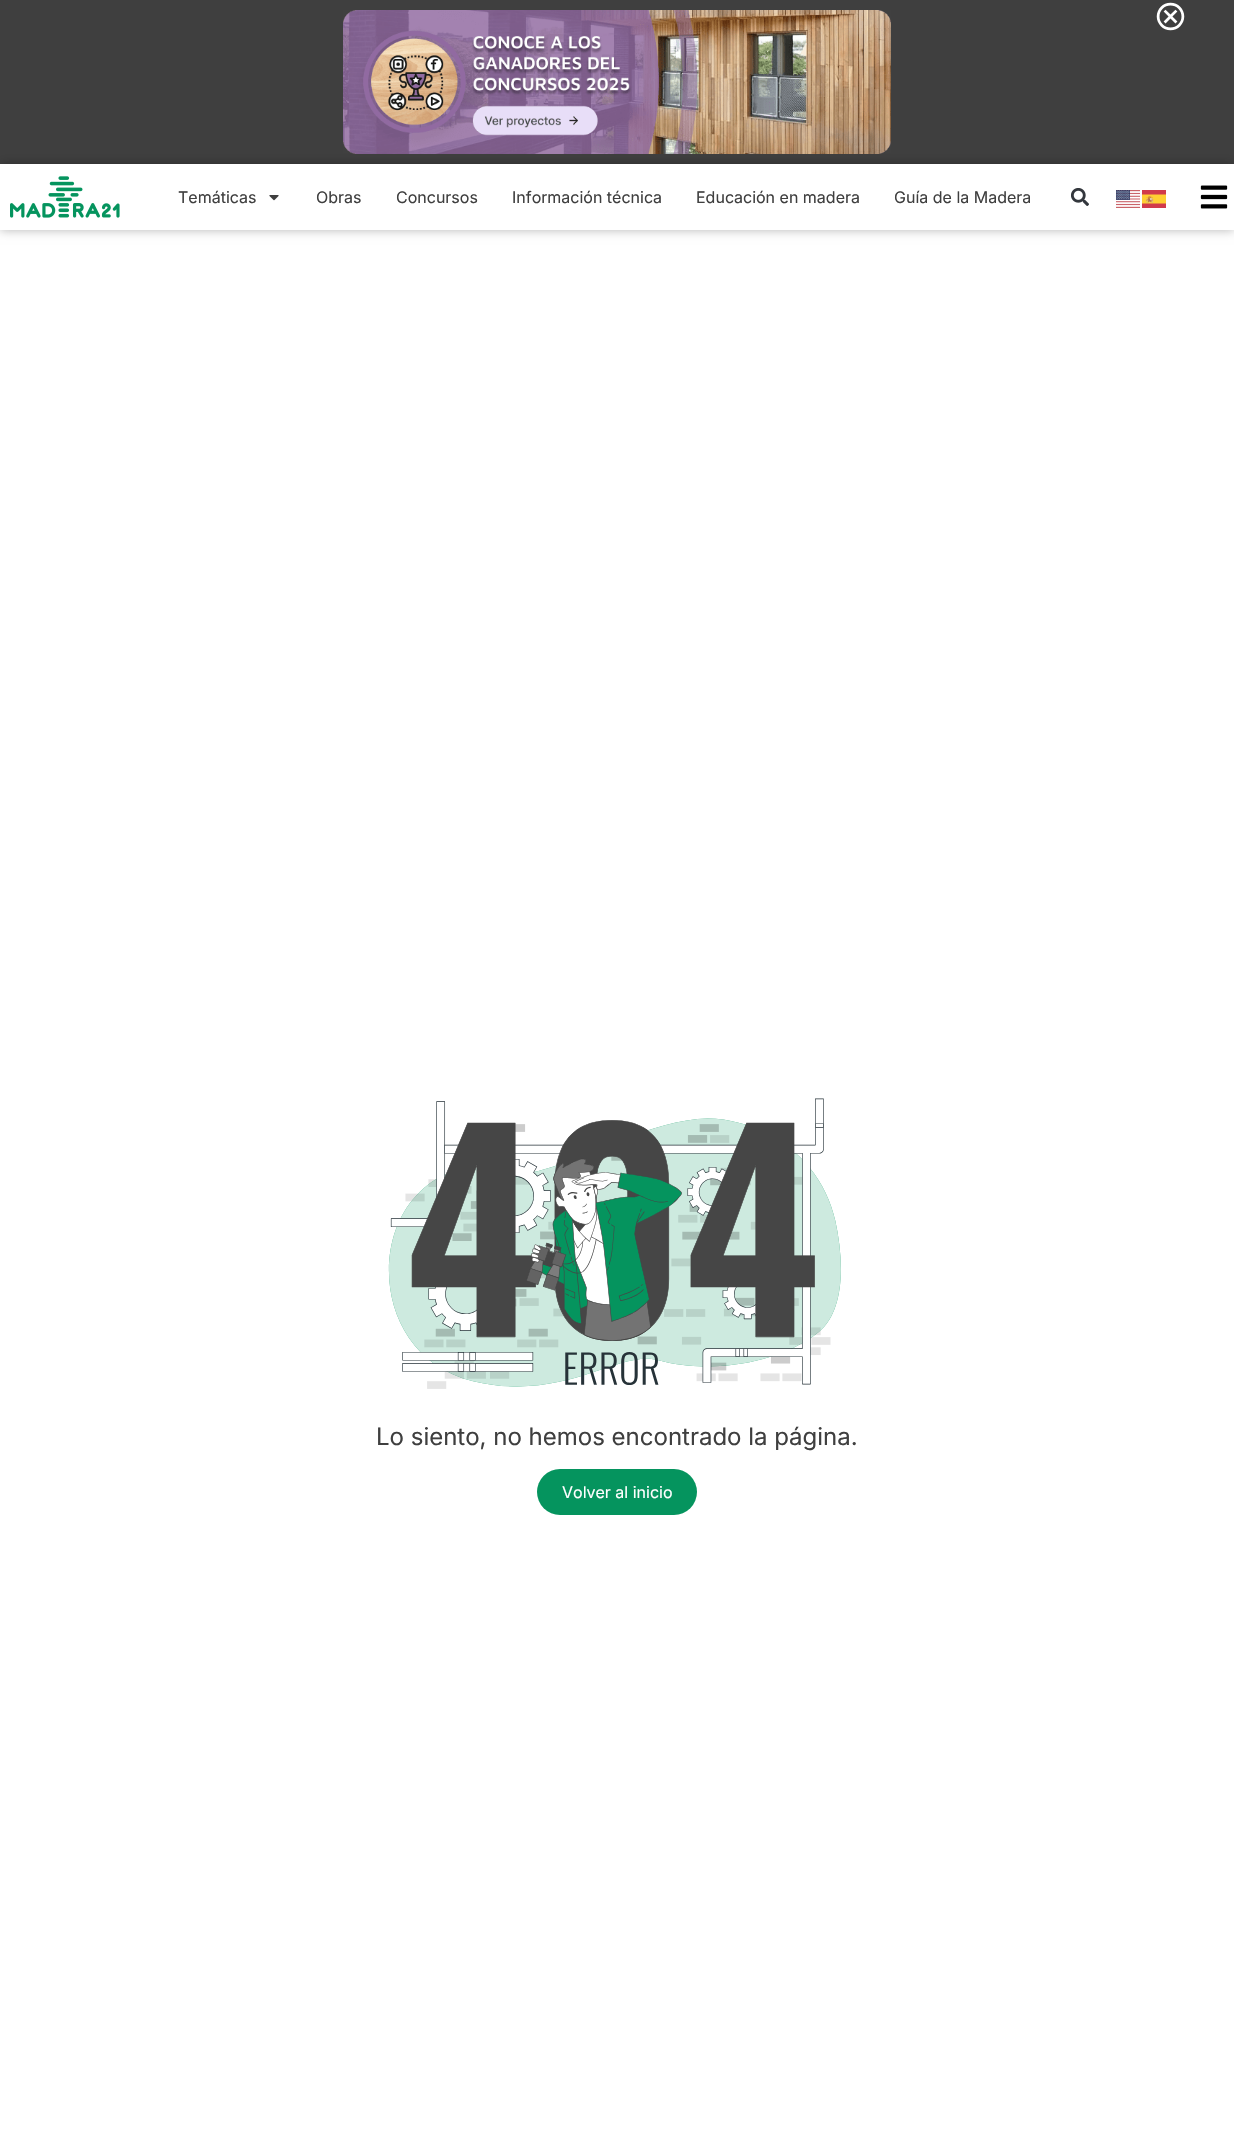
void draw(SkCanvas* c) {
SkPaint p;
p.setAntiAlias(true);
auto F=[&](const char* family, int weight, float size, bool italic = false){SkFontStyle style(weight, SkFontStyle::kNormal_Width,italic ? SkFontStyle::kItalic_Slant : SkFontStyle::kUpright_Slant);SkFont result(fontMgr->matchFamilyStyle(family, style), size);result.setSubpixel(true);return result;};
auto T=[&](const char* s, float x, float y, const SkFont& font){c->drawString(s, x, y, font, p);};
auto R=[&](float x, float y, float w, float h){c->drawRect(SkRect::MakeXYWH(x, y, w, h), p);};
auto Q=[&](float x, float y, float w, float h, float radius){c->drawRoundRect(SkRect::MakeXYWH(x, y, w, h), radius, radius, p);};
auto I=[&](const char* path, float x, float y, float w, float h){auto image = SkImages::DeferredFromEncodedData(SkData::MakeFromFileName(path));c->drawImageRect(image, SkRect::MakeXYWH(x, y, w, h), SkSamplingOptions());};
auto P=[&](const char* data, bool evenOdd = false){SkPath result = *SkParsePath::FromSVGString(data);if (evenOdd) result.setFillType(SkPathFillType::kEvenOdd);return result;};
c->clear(0xffffffff);
p.setColor(0xff3f3f3f);
R(0,0,1234,164);
I("1.png",343,10,548,144);
I("2.png",1156,2,29,29);
c->save();
c->clipPath(P("M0 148h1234v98h-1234zm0 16h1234v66h-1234z",true),true);
p.setColor(0x4a000000);
p.setMaskFilter(SkMaskFilter::MakeBlur(kNormal_SkBlurStyle, 5));
c->drawRect(SkRect::MakeXYWH(0,164,1234,66),p);
p.setMaskFilter(nullptr);
c->restore();
I("3.png",10,176,110,42);
auto f1 = F("Inter",400,16);
p.setColor(0xff3f3f3f);
T("Temáticas",178,203,f1);
I("4.png",269,195,10,6);
T("Obras",316,203,f1);
T("Concursos",396,203,f1);
T("Información técnica",512,203,f1);
T("Educación en madera",696,203,f1);
T("Guía de la Madera",894,203,f1);
I("5.png",1071,188,18,18);
I("6.png",1116,190,24,18);
I("7.png",1142,190,24,18);
I("8.png",1200,185,28,24);
I("9.png",388,1098,453,291);
auto f2 = F("Inter",400,24);
T("Lo siento, no hemos encontrado la página.",376,1445,f2);
p.setColor(0xff05945e);
Q(537,1469,160,46,23);
p.setColor(0xffffffff);
T("Volver al inicio",562,1498,f1);
}
